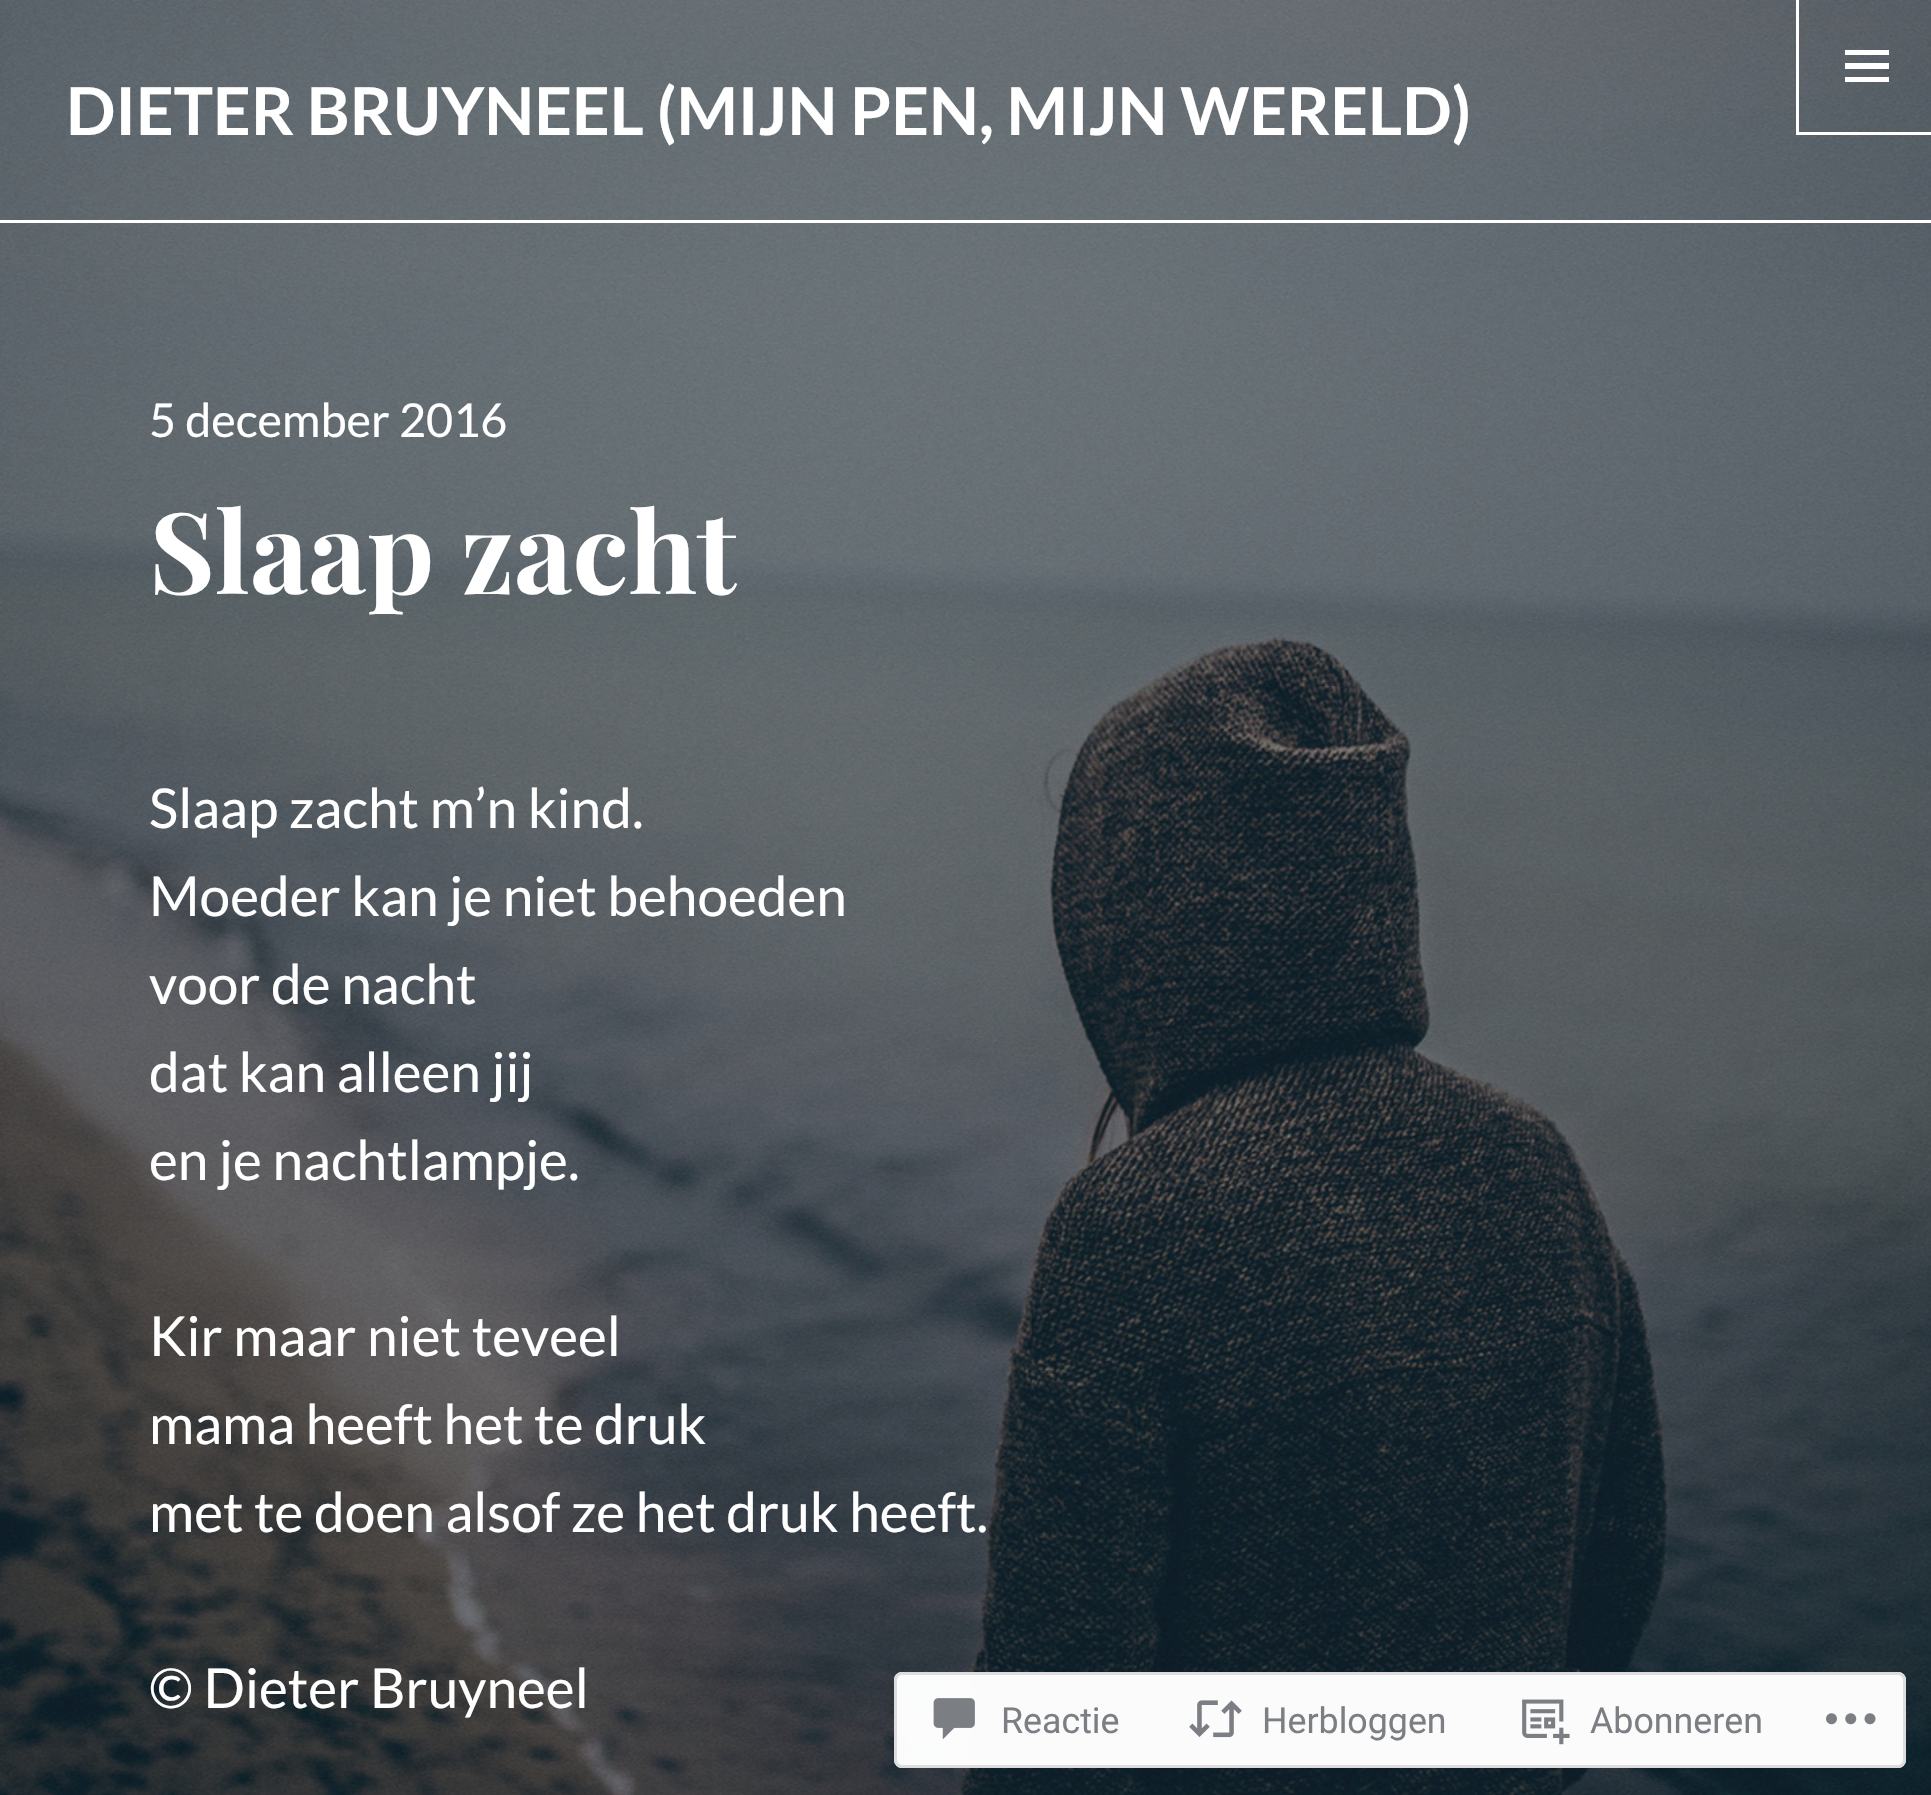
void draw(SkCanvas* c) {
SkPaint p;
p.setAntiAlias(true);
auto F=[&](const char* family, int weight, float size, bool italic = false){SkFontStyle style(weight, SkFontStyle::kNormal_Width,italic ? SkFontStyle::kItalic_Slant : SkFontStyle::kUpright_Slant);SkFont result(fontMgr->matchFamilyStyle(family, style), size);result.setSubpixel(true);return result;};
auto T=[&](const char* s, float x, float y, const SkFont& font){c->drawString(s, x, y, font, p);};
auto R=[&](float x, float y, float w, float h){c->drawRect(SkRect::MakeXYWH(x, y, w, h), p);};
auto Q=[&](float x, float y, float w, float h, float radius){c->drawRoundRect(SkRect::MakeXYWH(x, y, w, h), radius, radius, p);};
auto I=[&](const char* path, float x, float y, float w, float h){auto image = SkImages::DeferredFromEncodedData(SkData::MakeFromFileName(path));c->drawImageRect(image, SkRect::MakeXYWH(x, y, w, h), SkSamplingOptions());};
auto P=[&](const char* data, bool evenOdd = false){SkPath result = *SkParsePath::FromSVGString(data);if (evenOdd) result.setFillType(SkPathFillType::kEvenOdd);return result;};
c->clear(0xffffffff);
I("1.png",0,0,1931,1795);
p.setColor(0xffffffff);
R(0,220,1931,3);
auto f1 = F("Lato",700,66);
T("DIETER BRUYNEEL (MIJN PEN, MIJN WERELD)",66,135,f1);
R(1796,132,135,3);
R(1796,0,3,135);
c->drawPath(P("M1845 82v-5h44v5zm0-32h44v5h-44zm0 19v-6h44v6z"),p);
auto f2 = F("Lato",400,46.75);
T("5 december 2016",149,437,f2);
auto f3 = F("Playfair Display",700,112.75);
T("Slaap zacht",149,594,f3);
auto f4 = F("Lato",400,55);
T("Slaap zacht m’n kind.",149,828,f4);
T("Moeder kan je niet behoeden",149,916,f4);
T("voor de nacht",149,1004,f4);
T("dat kan alleen jij",149,1092,f4);
T("en je nachtlampje.",149,1180,f4);
T("Kir maar niet teveel",149,1356,f4);
T("mama heeft het te druk",149,1444,f4);
T("met te doen alsof ze het druk heeft.",149,1532,f4);
T("© Dieter Bruyneel",149,1708,f4);
p.setColor(0xfaffffff);
Q(894,1672,1012,96,8);
p.setStroke(true);
p.setStrokeWidth(3);
p.setColor(0xfadcdcde);
c->drawRoundRect(SkRect::MakeXYWH(895.5,1673.5,1009,93),6.5,6.5,p);
I("2.png",933,1698,42,42);
auto f5 = F("Roboto",400,35.75);
p.setStroke(false);
p.setColor(0xff7b7f84);
T("Reactie",1001,1733,f5);
I("3.png",1189,1700,53,38);
T("Herbloggen",1262,1733,f5);
I("4.png",1522,1699,48,46);
T("Abonneren",1590,1733,f5);
I("5.png",1826,1713,50,12);
}
